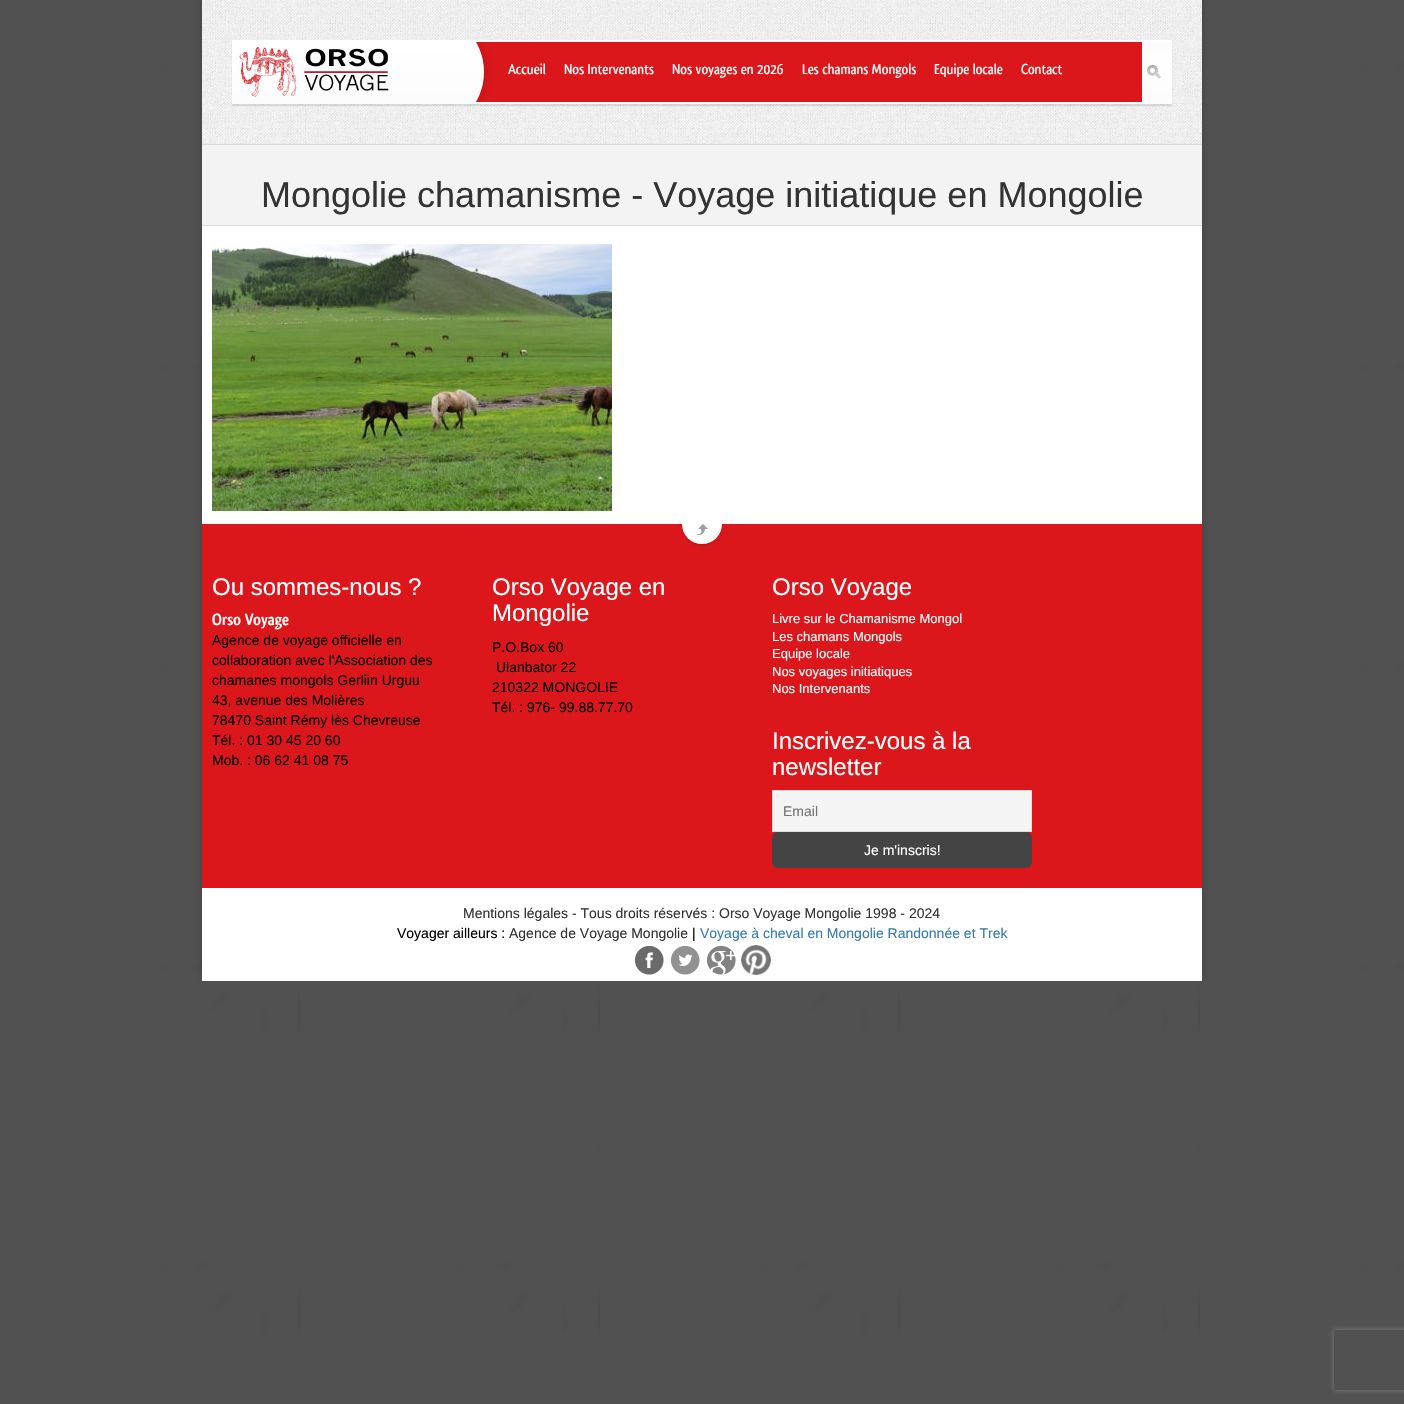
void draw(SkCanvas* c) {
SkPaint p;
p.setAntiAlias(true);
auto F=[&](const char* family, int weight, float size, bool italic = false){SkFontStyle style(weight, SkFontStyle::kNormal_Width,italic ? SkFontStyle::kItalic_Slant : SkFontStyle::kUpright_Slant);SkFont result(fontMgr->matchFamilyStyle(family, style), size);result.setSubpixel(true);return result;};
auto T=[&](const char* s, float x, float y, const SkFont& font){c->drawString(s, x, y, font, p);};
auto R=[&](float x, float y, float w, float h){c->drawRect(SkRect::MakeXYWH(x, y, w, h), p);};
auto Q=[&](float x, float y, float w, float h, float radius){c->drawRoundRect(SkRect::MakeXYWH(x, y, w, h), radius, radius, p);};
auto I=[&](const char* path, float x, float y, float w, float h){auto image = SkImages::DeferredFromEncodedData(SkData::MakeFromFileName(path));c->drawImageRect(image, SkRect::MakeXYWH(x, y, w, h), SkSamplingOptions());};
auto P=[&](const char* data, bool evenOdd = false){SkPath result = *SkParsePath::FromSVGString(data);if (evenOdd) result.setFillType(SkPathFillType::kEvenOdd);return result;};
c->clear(0xffffffff);
I("1.png",0,0,1404,1404);
p.setColor(0x33000000);
p.setMaskFilter(SkMaskFilter::MakeBlur(kNormal_SkBlurStyle, 3.5));
c->drawRect(SkRect::MakeXYWH(202,-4,1000,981),p);
p.setMaskFilter(nullptr);
p.setColor(0xffffffff);
R(202,226,1000,298);
I("2.png",202,0,1000,144);
p.setColor(0x1a000000);
p.setMaskFilter(SkMaskFilter::MakeBlur(kNormal_SkBlurStyle, .5));
c->drawRect(SkRect::MakeXYWH(232,42,940,64),p);
p.setMaskFilter(nullptr);
{
const SkColor colors[] = {0xffffffff,0xfffcfcfc};
const float stops[] = {0,1};
const SkPoint ends[] = {{702,40}, {702,104}};
p.setShader(SkGradientShader::MakeLinear(ends, colors, stops, 2, SkTileMode::kClamp));
p.setAlpha(255);
}
R(232,40,940,64);
I("3.png",239,47,150,50);
p.setShader(nullptr);
p.setColor(0xffdb171b);
R(475,42,667,60);
p.setColor(0xfff3f3f3);
R(202,145,1000,80);
p.setColor(0xffdadada);
R(202,144,1000,1);
c->save();
c->clipRect(SkRect::MakeXYWH(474,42,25,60));
p.setColor(0x1a000000);
p.setMaskFilter(SkMaskFilter::MakeBlur(kNormal_SkBlurStyle, 4.5));
c->drawRoundRect(SkRect::MakeXYWH(367,12,120,120),60,60,p);
p.setMaskFilter(nullptr);
c->restore();
c->save();
c->clipRect(SkRect::MakeXYWH(474,42,25,60));
{
const SkColor colors[] = {0xffffffff,0xfffcfcfc};
const float stops[] = {0,1};
const SkPoint ends[] = {{424,12}, {424,132}};
p.setShader(SkGradientShader::MakeLinear(ends, colors, stops, 2, SkTileMode::kClamp));
p.setAlpha(255);
}
c->drawCircle(424,72,60,p);
c->restore();
auto f1 = F("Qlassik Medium",500,15);
p.setShader(nullptr);
p.setColor(0xffffffff);
T("Accueil",508,74,f1);
T("Nos Intervenants",564,74,f1);
T("Nos voyages en 2026",672,74,f1);
T("Les chamans Mongols",802,74,f1);
T("Equipe locale",934,74,f1);
T("Contact",1021,74,f1);
p.setColor(0xfffcfcfc);
R(1142,42,30,9);
I("4.png",1147,65,14,14);
p.setColor(0xffdbdbdb);
R(202,225,1000,1);
auto f2 = F("Liberation Sans",400,36);
p.setColor(0xff333333);
T("Mongolie chamanisme - Voyage initiatique en Mongolie",261,207,f2);
I("5.png",212,244,400,267);
p.setColor(0xffdb171b);
R(202,524,1000,364);
p.setColor(0x1a000000);
p.setMaskFilter(SkMaskFilter::MakeBlur(kNormal_SkBlurStyle, 1));
c->drawRoundRect(SkRect::MakeXYWH(682,506,40,40),20,20,p);
p.setMaskFilter(nullptr);
p.setColor(0xffffffff);
c->drawCircle(702,524,20,p);
I("6.png",696,524,12,11);
auto f3 = F("Liberation Sans",400,24);
T("Ou sommes-nous ?",212,595,f3);
auto f4 = F("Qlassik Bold",700,17);
T("Orso Voyage",212,625,f4);
auto f5 = F("Liberation Sans",400,14);
p.setColor(0xff000000);
T("Agence de voyage officielle en",212,645,f5);
T("collaboration avec l'Association des",212,665,f5);
T("chamanes mongols Gerliin Urguu",212,685,f5);
T("43, avenue des Molières",212,705,f5);
T("78470 Saint Rémy lès Chevreuse",212,725,f5);
T("Tél. : 01 30 45 20 60",212,745,f5);
T("Mob. : 06 62 41 08 75",212,765,f5);
p.setColor(0xffffffff);
T("Orso Voyage en",492,595,f3);
T("Mongolie",492,621,f3);
p.setColor(0xff000000);
T("P.O.Box 60",492,652,f5);
T("Ulanbator 22",496,672,f5);
T("210322 MONGOLIE",492,692,f5);
T("Tél. : 976- 99.88.77.70",492,712,f5);
p.setColor(0xffffffff);
T("Orso Voyage",772,595,f3);
auto f6 = F("Liberation Sans",400,13);
T("Livre sur le Chamanisme Mongol",772,623,f6);
T("Les chamans Mongols",772,641,f6);
T("Equipe locale",772,658,f6);
T("Nos voyages initiatiques",772,676,f6);
T("Nos Intervenants",772,693,f6);
T("Inscrivez-vous à la",772,749,f3);
T("newsletter",772,775,f3);
p.setColor(0xfff4f4f4);
c->drawRect(SkRect::MakeXYWH(772.5,790.5,259,41),p);
p.setStroke(true);
p.setStrokeWidth(1);
p.setColor(0xffdddddd);
c->drawRect(SkRect::MakeXYWH(772.5,790.5,259,41),p);
p.setStroke(false);
p.setColor(0xff757575);
T("Email",783,816,f5);
p.setColor(0xff444444);
Q(772,832,260,36,6);
p.setColor(0xffffffff);
T("Je m'inscris!",864,855,f5);
R(202,888,1000,93);
p.setColor(0xff333333);
T("Mentions légales - Tous droits réservés : Orso Voyage Mongolie 1998 - 2024",463,918,f5);
p.setColor(0xff000000);
T("Voyager ailleurs :",397,938,f5);
p.setColor(0xff333333);
T("Agence de Voyage Mongolie",509,938,f5);
p.setColor(0xff000000);
T("|",692,938,f5);
p.setColor(0xff337ab7);
T("Voyage à cheval en Mongolie Randonnée et Trek",700,938,f5);
I("7.png",634,945,30,30);
I("8.png",670,945,30,30);
I("9.png",706,945,30,30);
I("10.png",741,945,30,30);
c->save();
c->clipPath(P("M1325 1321h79v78h-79zm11 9h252c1 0 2 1 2 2v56c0 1-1 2-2 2h-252c-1 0-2-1-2-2v-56c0-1 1-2 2-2z",true),true);
p.setColor(0xff808080);
p.setMaskFilter(SkMaskFilter::MakeBlur(kNormal_SkBlurStyle, 2.5));
c->drawRoundRect(SkRect::MakeXYWH(1334,1330,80,60),2,2,p);
p.setMaskFilter(nullptr);
c->restore();
}
